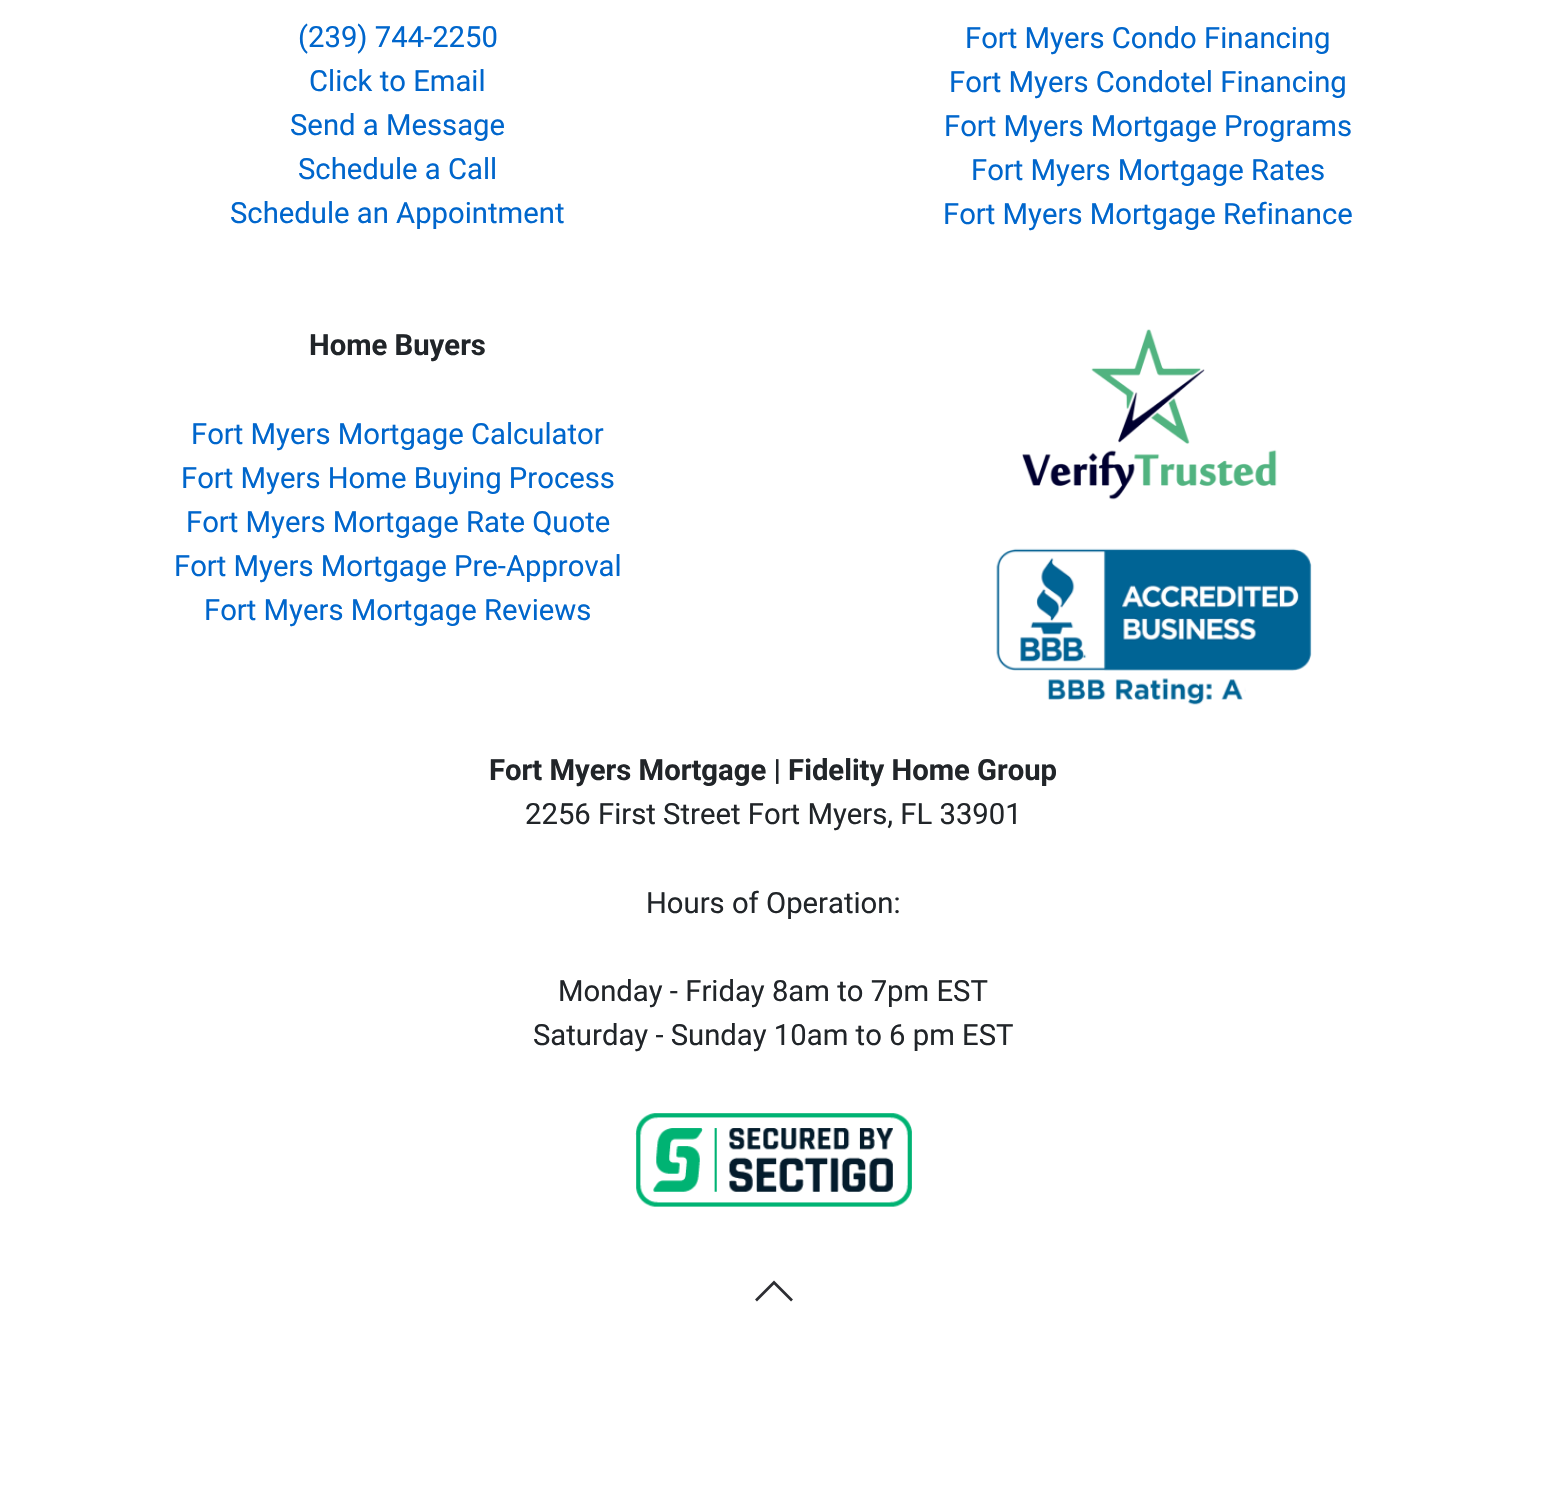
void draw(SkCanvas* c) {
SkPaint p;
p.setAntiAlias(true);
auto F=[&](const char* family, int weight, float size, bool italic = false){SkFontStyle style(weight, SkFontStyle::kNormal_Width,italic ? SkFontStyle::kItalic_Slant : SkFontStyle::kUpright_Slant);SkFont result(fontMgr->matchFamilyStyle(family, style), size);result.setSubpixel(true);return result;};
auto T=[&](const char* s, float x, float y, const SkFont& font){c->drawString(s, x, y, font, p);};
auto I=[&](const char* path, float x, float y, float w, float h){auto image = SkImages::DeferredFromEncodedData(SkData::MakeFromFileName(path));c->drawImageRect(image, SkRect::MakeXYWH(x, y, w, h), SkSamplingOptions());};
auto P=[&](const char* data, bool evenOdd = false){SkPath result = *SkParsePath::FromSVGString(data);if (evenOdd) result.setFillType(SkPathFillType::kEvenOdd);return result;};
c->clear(0xffffffff);
auto f1 = F("Roboto",400,29.25);
p.setColor(0xff0066cc);
T("(239) 744-2250",298,47,f1);
T("Click to Email",309,91,f1);
T("Send a Message",290,135,f1);
T("Schedule a Call",298,179,f1);
T("Schedule an Appointment",230,223,f1);
T("Fort Myers Condo Financing",965,48,f1);
T("Fort Myers Condotel Financing",949,92,f1);
T("Fort Myers Mortgage Programs",944,136,f1);
T("Fort Myers Mortgage Rates",971,180,f1);
T("Fort Myers Mortgage Refinance",943,224,f1);
auto f2 = F("Roboto",700,29.25);
p.setColor(0xff212529);
T("Home Buyers",309,355,f2);
p.setColor(0xff0066cc);
T("Fort Myers Mortgage Calculator",191,444,f1);
T("Fort Myers Home Buying Process",181,488,f1);
T("Fort Myers Mortgage Rate Quote",186,532,f1);
T("Fort Myers Mortgage Pre-Approval",174,576,f1);
T("Fort Myers Mortgage Reviews",204,620,f1);
I("1.png",1022,329,255,171);
I("2.png",996,548,316,157);
p.setColor(0xff212529);
T("Fort Myers Mortgage | Fidelity Home Group",489,780,f2);
T("2256 First Street Fort Myers, FL 33901",525,824,f1);
T("Hours of Operation:",646,913,f1);
T("Monday - Friday 8am to 7pm EST",558,1001,f1);
T("Saturday - Sunday 10am to 6 pm EST",533,1045,f1);
I("3.png",635,1113,277,94);
p.setStroke(true);
p.setStrokeWidth(2.7);
p.setColor(0xff2d2e33);
c->drawPath(P("M756 1300.5l18-18l18 18"),p);
}
